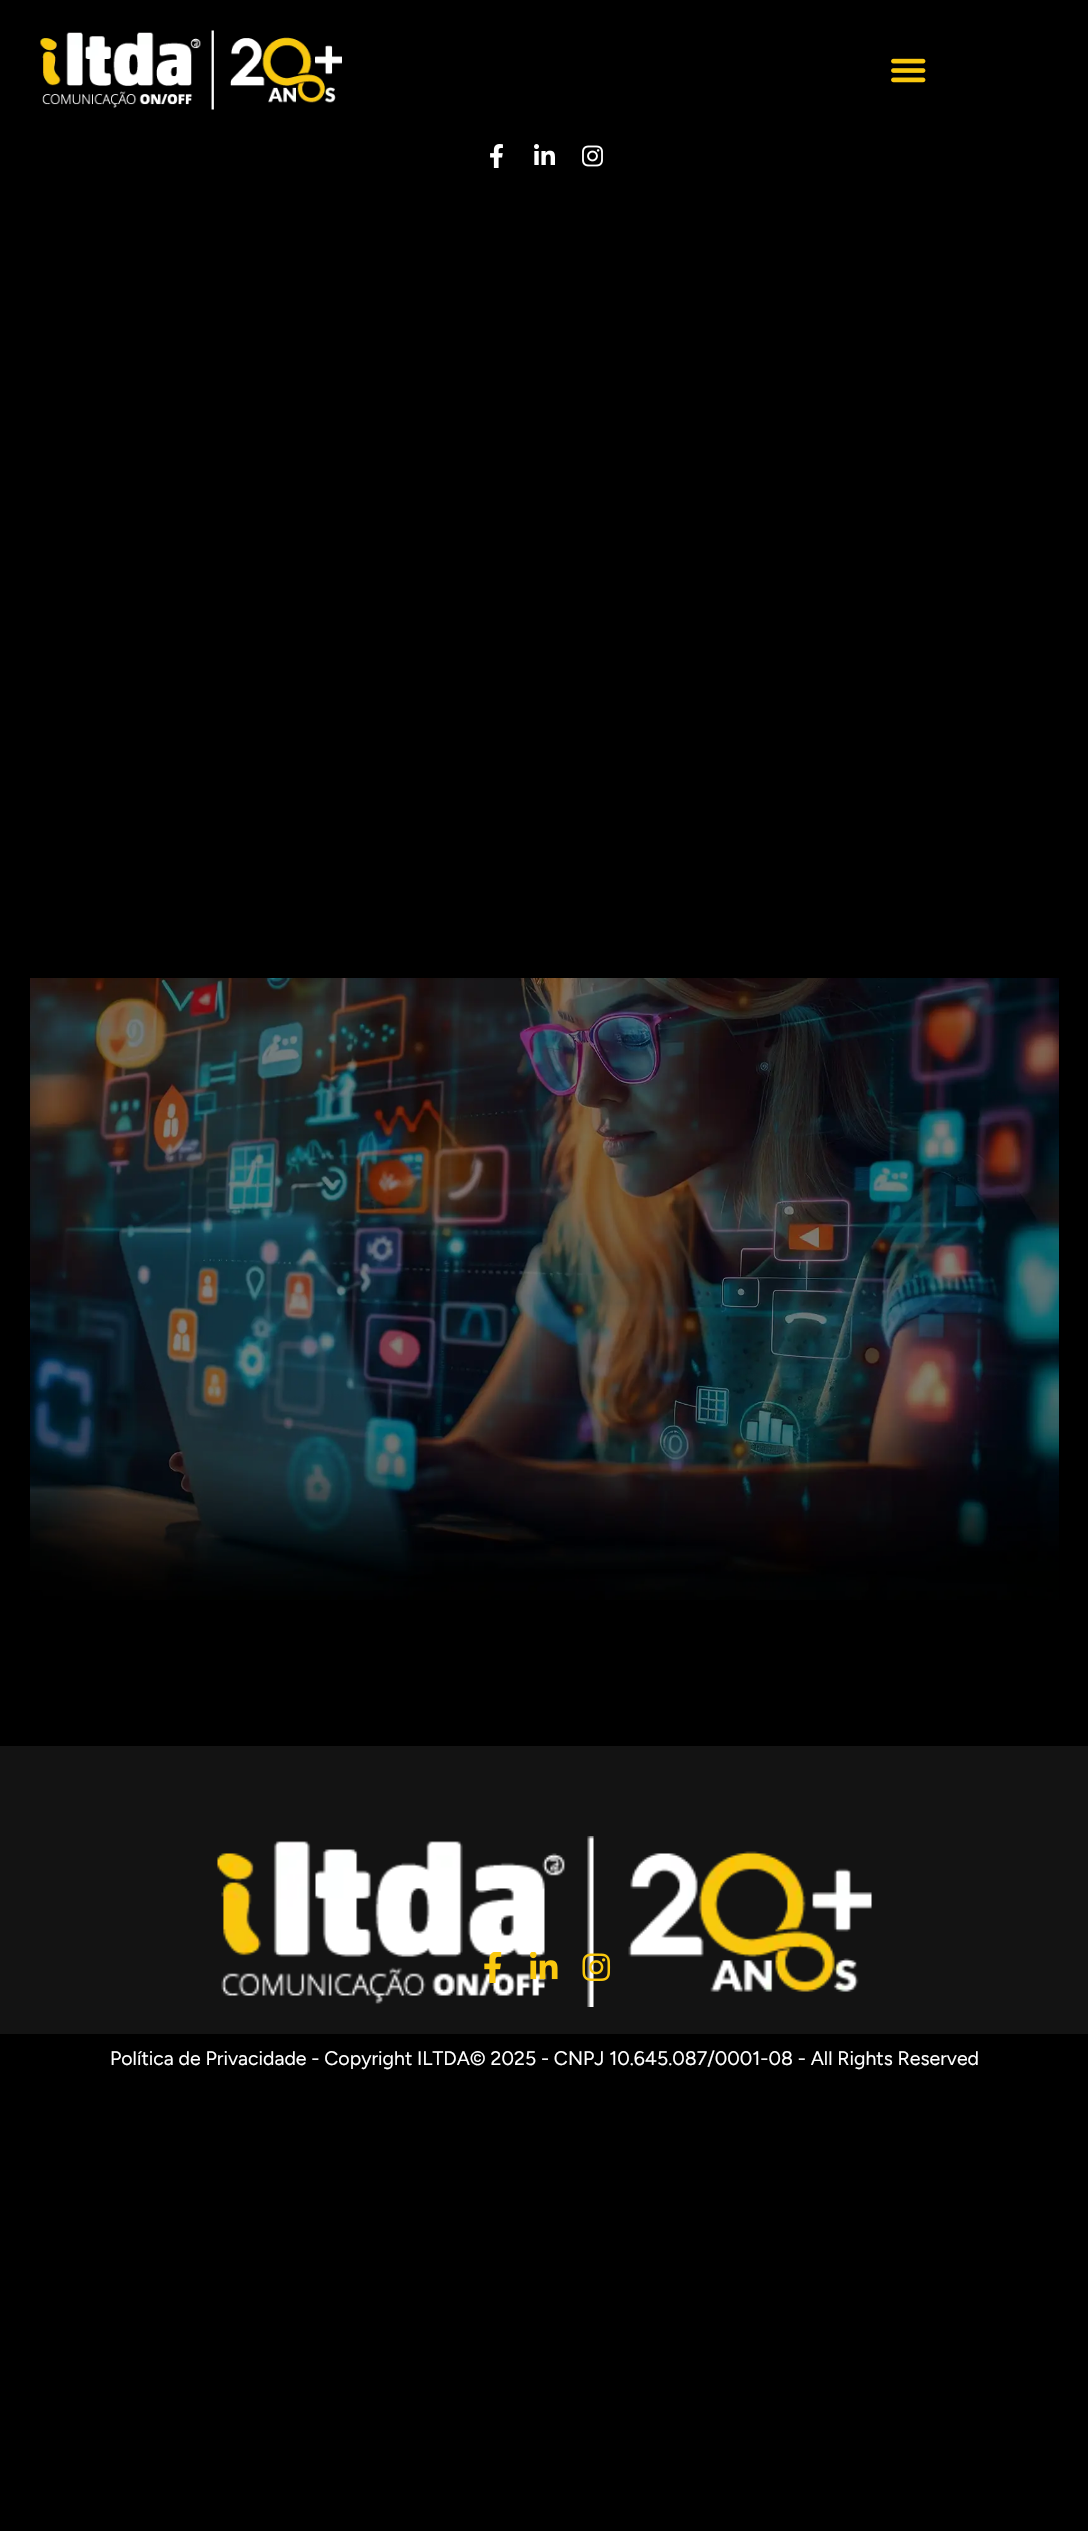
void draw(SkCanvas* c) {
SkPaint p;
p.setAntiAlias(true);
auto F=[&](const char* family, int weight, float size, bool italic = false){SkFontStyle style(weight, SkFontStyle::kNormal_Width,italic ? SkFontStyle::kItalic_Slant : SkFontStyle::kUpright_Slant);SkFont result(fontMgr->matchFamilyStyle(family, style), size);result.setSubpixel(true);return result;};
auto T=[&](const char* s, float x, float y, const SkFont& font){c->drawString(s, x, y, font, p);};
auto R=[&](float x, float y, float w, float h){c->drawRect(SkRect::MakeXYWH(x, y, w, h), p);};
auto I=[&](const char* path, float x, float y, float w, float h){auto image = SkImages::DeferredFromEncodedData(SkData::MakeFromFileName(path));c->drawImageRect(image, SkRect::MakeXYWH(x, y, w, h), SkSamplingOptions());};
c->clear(0xff000000);
I("1.png",40,30,302,80);
I("2.png",891,58,35,25);
I("3.png",490,144,13,24);
I("4.png",534,144,21,21);
I("5.png",582,145,21,22);
I("6.png",30,978,1029,622);
p.setColor(0xff131313);
R(0,1746,1088,288);
I("7.png",217,1836,655,171);
I("8.png",484,1952,18,31);
I("9.png",530,1952,28,28);
I("10.png",582,1953,29,28);
auto f1 = F("Figtree",400,19.5);
p.setColor(0xffffffff);
T("Política de Privacidade - Copyright ILTDA© 2025 - CNPJ 10.645.087/0001-08 - All Rights Reserved",110,2065,f1);
}
